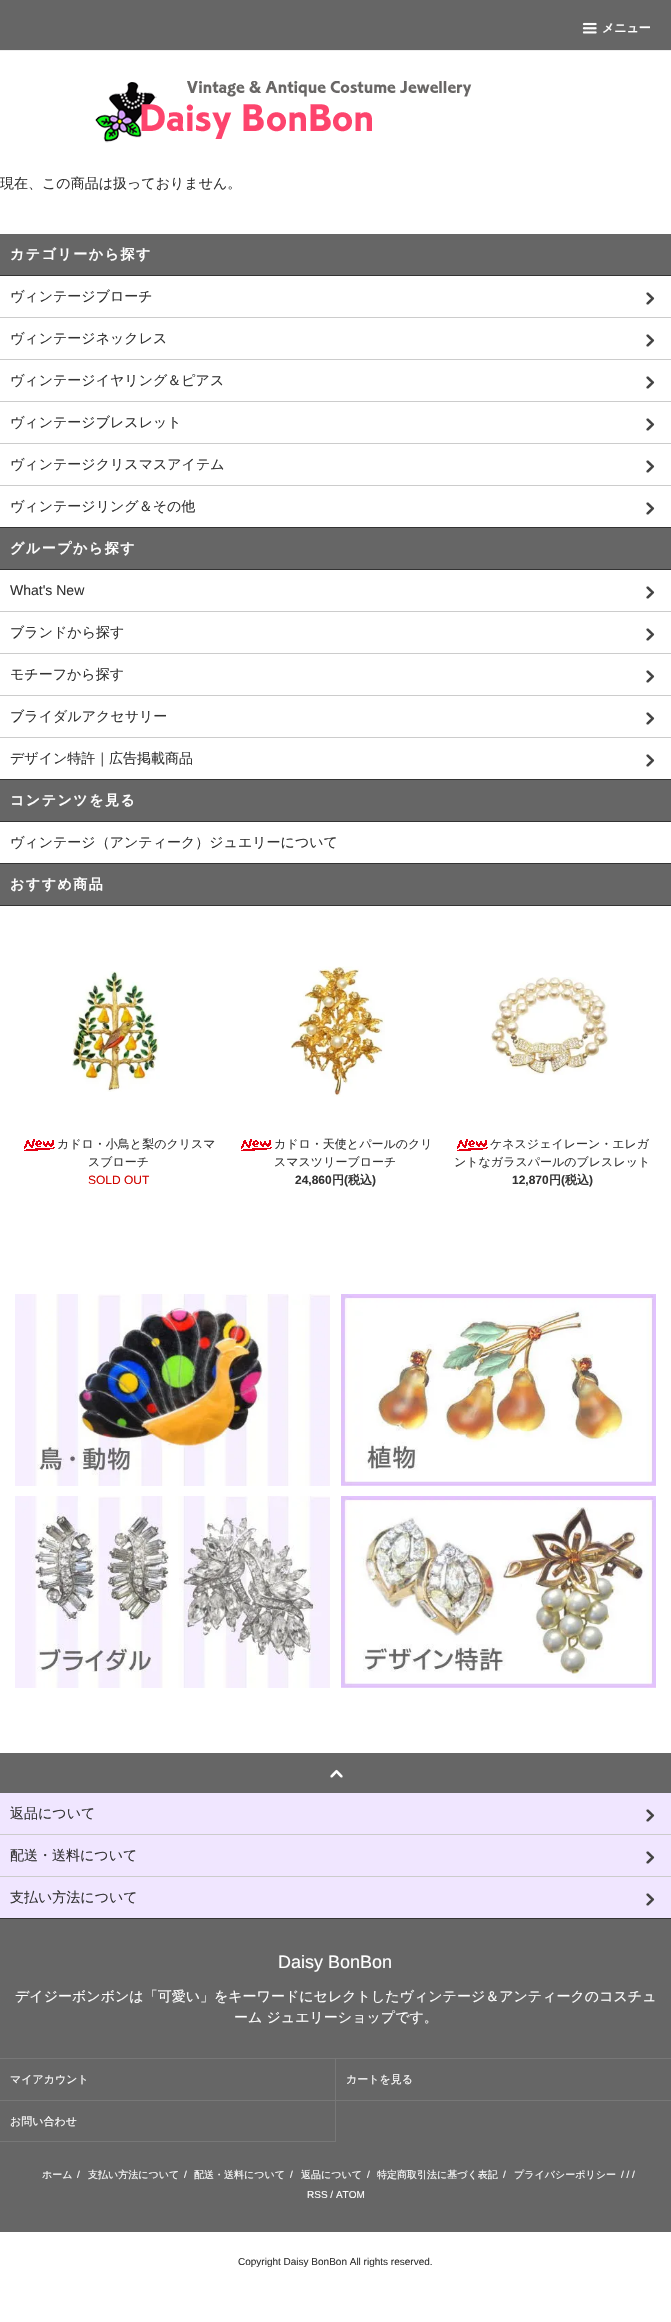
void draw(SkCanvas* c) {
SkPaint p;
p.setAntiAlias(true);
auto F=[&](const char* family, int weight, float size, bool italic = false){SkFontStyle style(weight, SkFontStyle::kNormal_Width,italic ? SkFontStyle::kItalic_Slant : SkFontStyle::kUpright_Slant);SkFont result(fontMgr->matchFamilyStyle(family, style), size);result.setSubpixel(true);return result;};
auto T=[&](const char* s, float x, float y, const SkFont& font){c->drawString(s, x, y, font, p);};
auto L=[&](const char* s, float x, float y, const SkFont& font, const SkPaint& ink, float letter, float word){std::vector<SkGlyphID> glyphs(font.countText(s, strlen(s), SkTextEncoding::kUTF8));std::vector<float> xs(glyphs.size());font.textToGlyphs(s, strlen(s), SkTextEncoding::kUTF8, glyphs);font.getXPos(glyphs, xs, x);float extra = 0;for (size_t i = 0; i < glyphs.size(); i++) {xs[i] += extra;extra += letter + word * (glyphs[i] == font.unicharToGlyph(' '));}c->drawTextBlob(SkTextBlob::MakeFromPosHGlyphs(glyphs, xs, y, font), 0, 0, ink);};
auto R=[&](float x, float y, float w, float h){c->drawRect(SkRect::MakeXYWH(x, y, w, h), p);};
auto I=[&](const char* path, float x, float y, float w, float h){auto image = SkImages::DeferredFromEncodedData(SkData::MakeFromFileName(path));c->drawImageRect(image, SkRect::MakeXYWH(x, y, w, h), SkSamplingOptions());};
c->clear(0xffffffff);
p.setColor(0xff666666);
R(0,0,671,50);
p.setColor(0xffeeeeee);
R(0,50,671,1);
I("1.png",582,22,15,12);
auto f1 = F("WenQuanYi Zen Hei",700,12);
p.setColor(0xffffffff);
T("メニュー",602,32,f1);
I("2.png",95,81,377,62);
auto f2 = F("WenQuanYi Zen Hei",500,14);
p.setColor(0xff333333);
T("現在、この商品は扱っておりません。",0,188,f2);
p.setColor(0xff666666);
R(0,234,671,41);
p.setColor(0xff333333);
R(0,275,671,1);
auto f3 = F("WenQuanYi Zen Hei",700,14);
p.setColor(0xffffffff);
L("カテゴリーから探す",10,259,f3,p,1.5,0);
p.setColor(0xff333333);
R(0,527,671,1);
T("ヴィンテージブローチ",10,301,f2);
I("3.png",646,292,9,13);
p.setColor(0xffcccccc);
R(0,317,671,1);
p.setColor(0xff333333);
T("ヴィンテージネックレス",10,343,f2);
I("3.png",646,334,9,13);
p.setColor(0xffcccccc);
R(0,359,671,1);
p.setColor(0xff333333);
T("ヴィンテージイヤリング＆ピアス",10,385,f2);
I("3.png",646,376,9,13);
p.setColor(0xffcccccc);
R(0,401,671,1);
p.setColor(0xff333333);
T("ヴィンテージブレスレット",10,427,f2);
I("3.png",646,418,9,13);
p.setColor(0xffcccccc);
R(0,443,671,1);
p.setColor(0xff333333);
T("ヴィンテージクリスマスアイテム",10,469,f2);
I("3.png",646,460,9,13);
p.setColor(0xffcccccc);
R(0,485,671,1);
p.setColor(0xff333333);
T("ヴィンテージリング＆その他",10,511,f2);
I("3.png",646,502,9,13);
p.setColor(0xff666666);
R(0,528,671,41);
p.setColor(0xff333333);
R(0,569,671,1);
p.setColor(0xffffffff);
L("グループから探す",10,553,f3,p,1.5,0);
p.setColor(0xff333333);
R(0,779,671,1);
auto f4 = F("Liberation Sans",400,14);
T("What's New",10,595,f4);
I("3.png",646,586,9,13);
p.setColor(0xffcccccc);
R(0,611,671,1);
p.setColor(0xff333333);
T("ブランドから探す",10,637,f2);
I("3.png",646,628,9,13);
p.setColor(0xffcccccc);
R(0,653,671,1);
p.setColor(0xff333333);
T("モチーフから探す",10,679,f2);
I("3.png",646,670,9,13);
p.setColor(0xffcccccc);
R(0,695,671,1);
p.setColor(0xff333333);
T("ブライダルアクセサリー",10,721,f2);
I("3.png",646,712,9,13);
p.setColor(0xffcccccc);
R(0,737,671,1);
p.setColor(0xff333333);
T("デザイン特許｜広告掲載商品",10,763,f2);
I("3.png",646,754,9,13);
p.setColor(0xff666666);
R(0,780,671,41);
p.setColor(0xff333333);
R(0,821,671,1);
p.setColor(0xffffffff);
L("コンテンツを見る",10,805,f3,p,1.5,0);
p.setColor(0xff333333);
R(0,863,671,1);
T("ヴィンテージ（アンティーク）ジュエリーについて",10,847,f2);
p.setColor(0xff666666);
R(0,864,671,41);
p.setColor(0xff333333);
R(0,905,671,1);
p.setColor(0xffffffff);
L("おすすめ商品",10,889,f3,p,1.5,0);
I("4.png",72,971,88,121);
I("5.png",24,1139,31,12);
auto f5 = F("WenQuanYi Zen Hei",500,12);
p.setColor(0xff333333);
T("カドロ・小鳥と梨のクリスマ",57,1148,f5);
T("スブローチ",88,1166,f5);
auto f6 = F("Liberation Sans",400,12);
p.setColor(0xffcf0400);
T("SOLD OUT",88,1184,f6);
I("6.png",290,966,95,131);
I("5.png",241,1139,31,12);
p.setColor(0xff333333);
T("カドロ・天使とパールのクリ",274,1148,f5);
T("スマスツリーブローチ",274,1166,f5);
auto f7 = F("Liberation Sans",700,12);
T("24,860",295,1184,f7);
T("円",332,1184,f1);
T("(",344,1184,f7);
T("税込",348,1184,f1);
T(")",372,1184,f7);
I("7.png",490,977,119,98);
I("5.png",457,1139,31,12);
T("ケネスジェイレーン・エレガ",490,1148,f5);
T("ントなガラスパールのブレスレット",454,1166,f5);
T("12,870",512,1184,f7);
T("円",549,1184,f1);
T("(",561,1184,f7);
T("税込",565,1184,f1);
T(")",589,1184,f7);
I("8.png",15,1294,315,192);
I("9.png",341,1294,315,192);
I("10.png",15,1496,315,192);
I("11.png",341,1496,315,192);
p.setColor(0xff666666);
R(0,1753,671,40);
I("12.png",330,1769,13,9);
p.setColor(0xfff0e6ff);
R(0,1793,671,125);
p.setColor(0xff333333);
R(0,1918,671,1);
T("返品について",10,1818,f2);
I("13.png",646,1809,9,13);
p.setColor(0xffcccccc);
R(0,1834,671,1);
p.setColor(0xff333333);
T("配送・送料について",10,1860,f2);
I("13.png",646,1851,9,13);
p.setColor(0xffcccccc);
R(0,1876,671,1);
p.setColor(0xff333333);
T("支払い方法について",10,1902,f2);
I("13.png",646,1893,9,13);
p.setColor(0xff666666);
R(0,1919,671,313);
auto f8 = F("Liberation Sans",400,18);
p.setColor(0xffffffff);
T("Daisy BonBon",278,1968,f8);
T("デイジーボンボンは「可愛い」をキーワードにセレクトしたヴィンテージ＆アンティークのコスチュ",15,2001,f2);
T("ーム ジュエリーショップです。",234,2022,f2);
p.setColor(0xff777777);
R(0,2058,671,1);
R(335,2059,1,83);
R(0,2100,671,1);
auto f9 = F("WenQuanYi Zen Hei",500,11);
p.setColor(0xffffffff);
T("マイアカウント",10,2083,f9);
T("カートを見る",346,2083,f9);
p.setColor(0xff777777);
R(0,2141,336,1);
p.setColor(0xffffffff);
T("お問い合わせ",10,2125,f9);
auto f10 = F("WenQuanYi Zen Hei",500,10);
T("ホーム",42,2178,f10);
auto f11 = F("Liberation Sans",400,10);
T("/",77,2178,f11);
T("支払い方法について",88,2178,f10);
T("/",184,2178,f11);
T("配送・送料について",194,2178,f10);
T("/",290,2178,f11);
T("返品について",301,2178,f10);
T("/",367,2178,f11);
T("特定商取引法に基づく表記",377,2178,f10);
T("/",503,2178,f11);
T("プライバシーポリシー",514,2178,f10);
T("/ / /",621,2178,f11);
T("RSS / ATOM",307,2198,f11);
p.setColor(0xff333333);
T("Copyright Daisy BonBon All rights reserved.",238,2265,f11);
}
